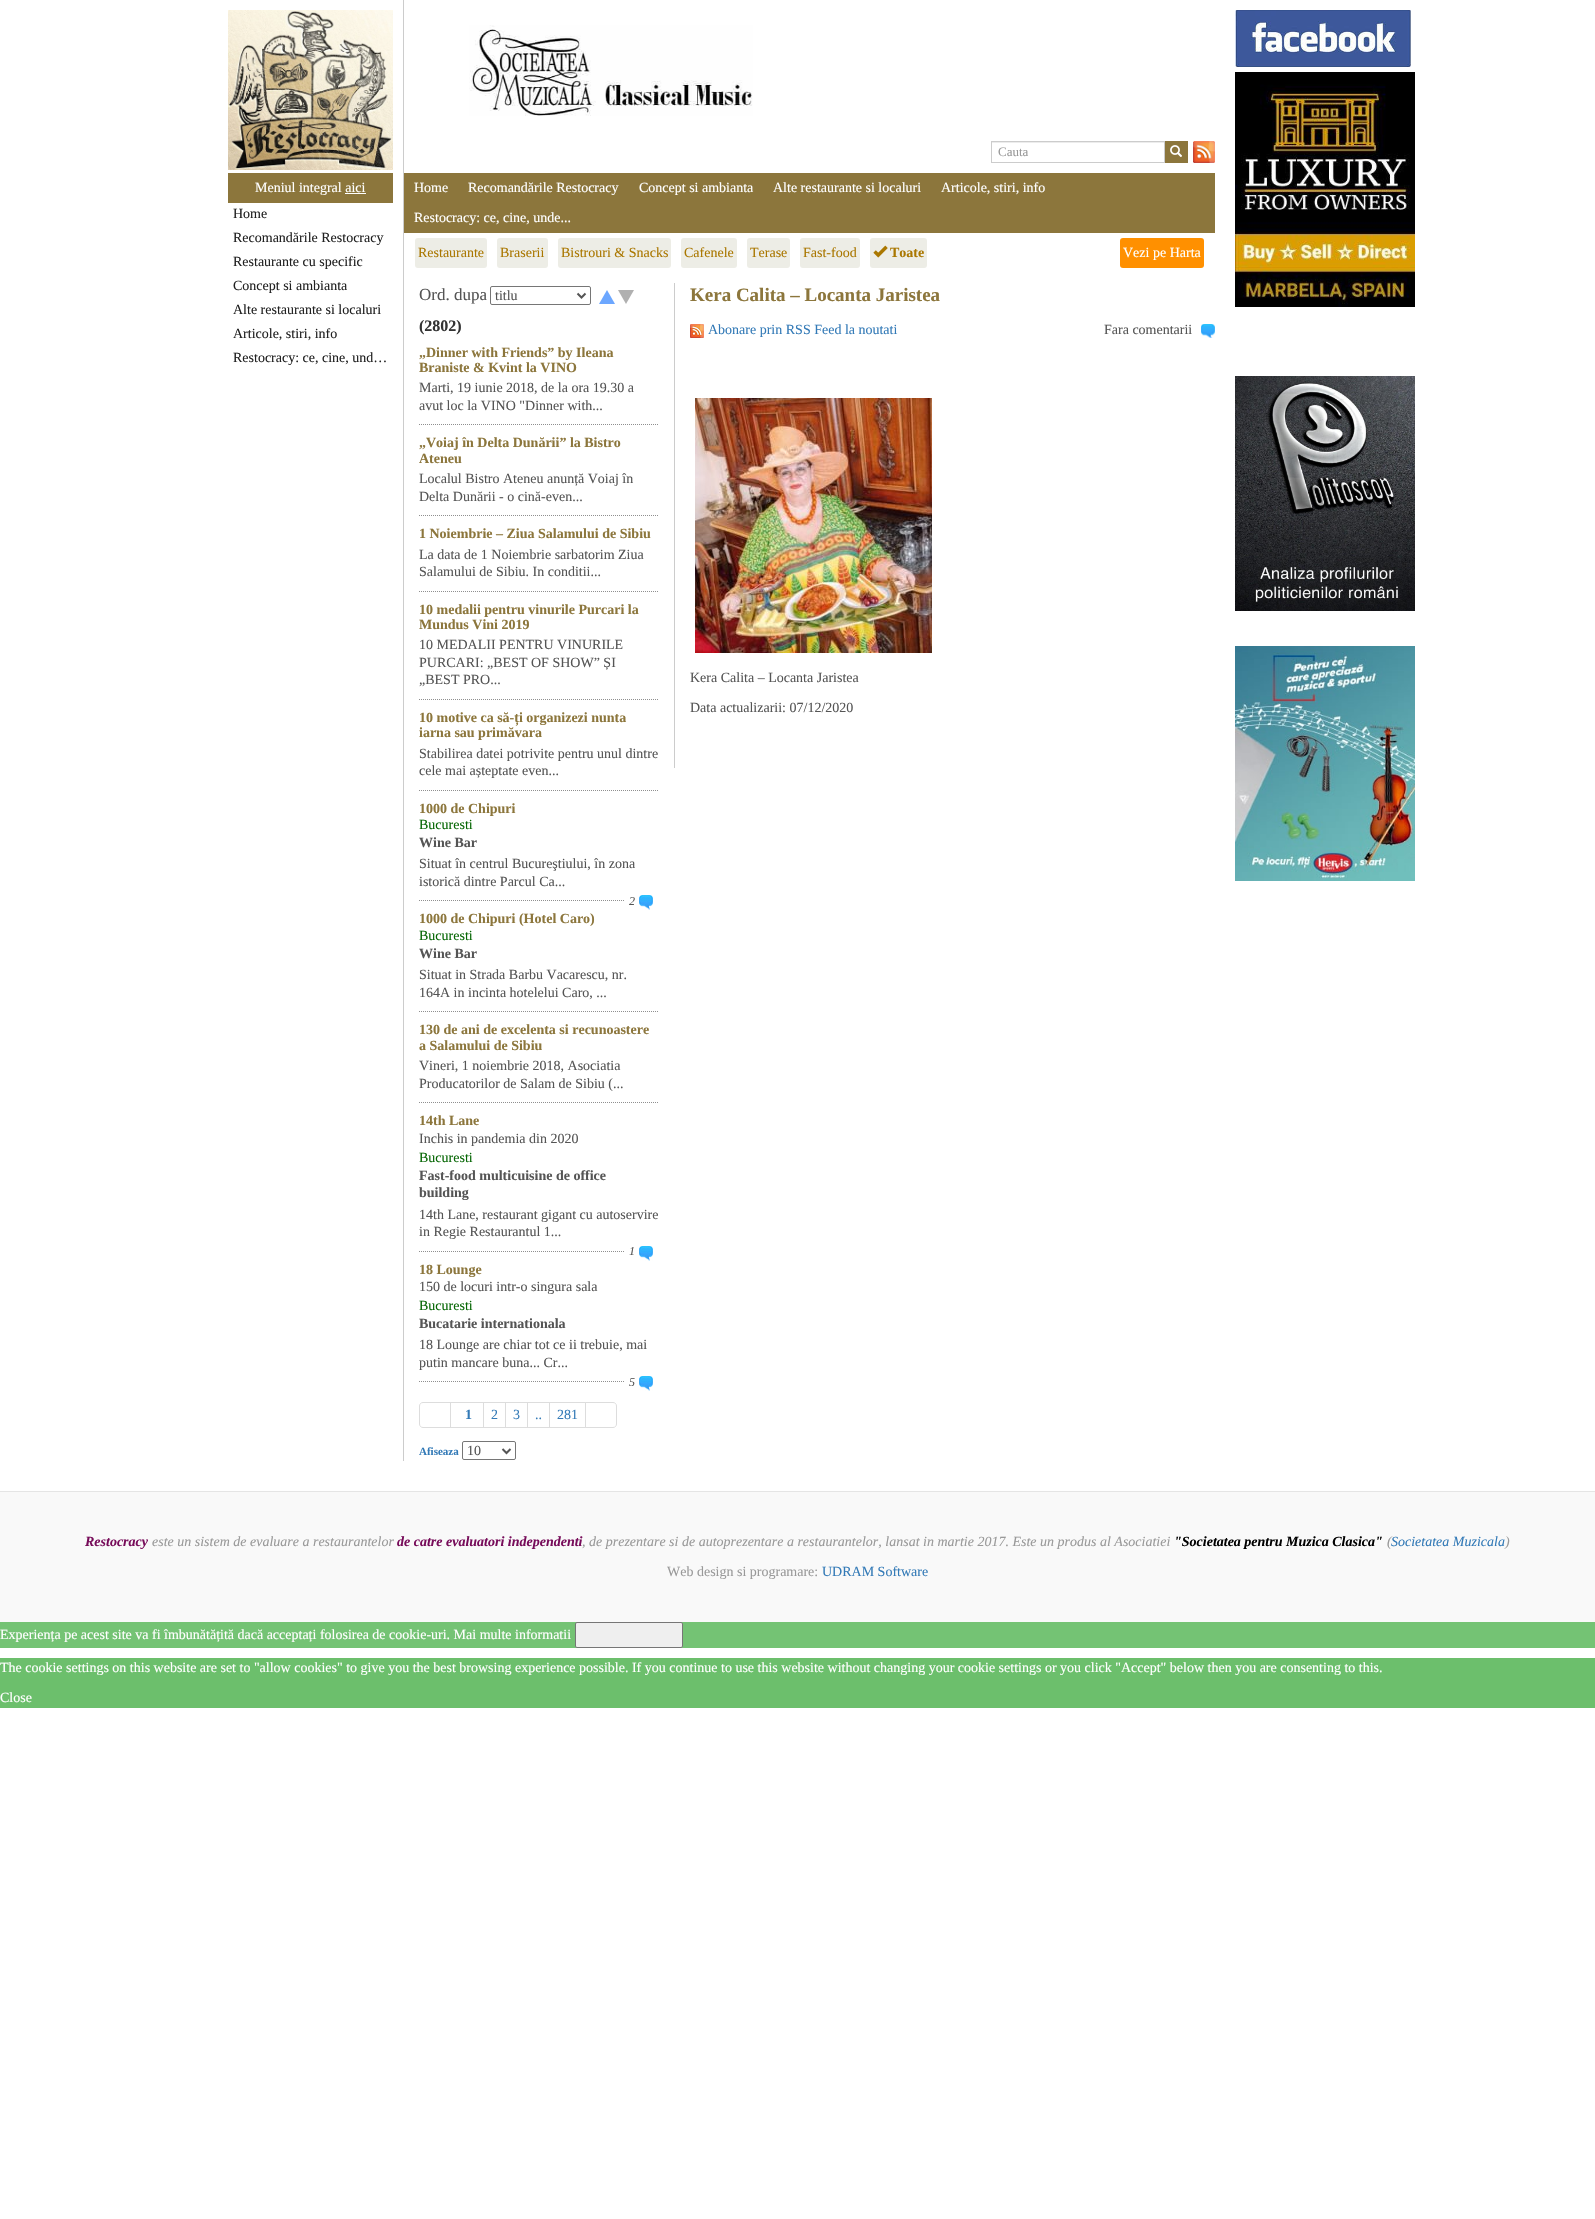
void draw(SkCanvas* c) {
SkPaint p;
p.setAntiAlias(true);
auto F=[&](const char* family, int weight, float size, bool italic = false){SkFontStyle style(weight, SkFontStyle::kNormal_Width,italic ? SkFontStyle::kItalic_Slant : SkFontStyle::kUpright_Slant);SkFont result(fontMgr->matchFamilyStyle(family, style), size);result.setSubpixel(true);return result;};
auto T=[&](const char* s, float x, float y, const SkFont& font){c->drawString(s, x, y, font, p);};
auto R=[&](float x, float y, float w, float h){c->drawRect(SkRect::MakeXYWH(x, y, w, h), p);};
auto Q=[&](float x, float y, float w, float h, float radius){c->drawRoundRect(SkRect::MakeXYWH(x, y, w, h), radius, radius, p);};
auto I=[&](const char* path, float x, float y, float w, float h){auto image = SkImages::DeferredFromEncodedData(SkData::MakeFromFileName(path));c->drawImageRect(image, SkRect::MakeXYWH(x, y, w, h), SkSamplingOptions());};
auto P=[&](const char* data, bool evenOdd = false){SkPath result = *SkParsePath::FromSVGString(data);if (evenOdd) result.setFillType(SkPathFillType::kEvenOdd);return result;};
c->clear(0xffffffff);
I("1.png",228,10,165,160);
p.setColor(0xff8c763c);
R(228,173,165,30);
auto f1 = F("Liberation Serif",400,14);
p.setColor(0xffffffff);
T("Meniul integral aici",255,192,f1);
R(345,193,21,1);
p.setColor(0xff212121);
T("Home",233,218,f1);
T("Recomandările Restocracy",233,242,f1);
T("Restaurante cu specific",233,266,f1);
T("Concept si ambianta",233,290,f1);
T("Alte restaurante si localuri",233,314,f1);
T("Articole, stiri, info",233,338,f1);
T("Restocracy: ce, cine, und…",233,362,f1);
p.setColor(0xffcccccc);
R(403,0,1,1461);
I("2.png",469,25,284,91);
p.setColor(0xffececec);
R(992,142,172,1);
p.setStroke(true);
p.setStrokeWidth(1);
p.setColor(0xffcccccc);
c->drawRect(SkRect::MakeXYWH(991.5,141.5,173,21),p);
auto f2 = F("Liberation Serif",400,13);
p.setStroke(false);
p.setColor(0xff999999);
T("Cauta",998,156,f2);
p.setColor(0xff8c763c);
R(1165,141,23,22);
I("3.png",1170,145,12,12);
I("4.png",1193,141,22,22);
R(404,173,811,60);
p.setColor(0xffffffff);
T("Home",414,192,f1);
T("Recomandările Restocracy",468,192,f1);
T("Concept si ambianta",639,192,f1);
T("Alte restaurante si localuri",773,192,f1);
T("Articole, stiri, info",941,192,f1);
T("Restocracy: ce, cine, unde...",414,222,f1);
p.setColor(0xffedede6);
Q(415,238,72,30,3);
p.setColor(0xffaa7700);
T("Restaurante",418,257,f1);
p.setColor(0xffedede6);
Q(497,238,51,30,3);
p.setColor(0xffaa7700);
T("Braserii",500,257,f1);
p.setColor(0xffedede6);
Q(558,238,113,30,3);
p.setColor(0xffaa7700);
T("Bistrouri & Snacks",561,257,f1);
p.setColor(0xffedede6);
Q(681,238,56,30,3);
p.setColor(0xffaa7700);
T("Cafenele",684,257,f1);
p.setColor(0xffedede6);
Q(747,238,43,30,3);
p.setColor(0xffaa7700);
T("Terase",750,257,f1);
p.setColor(0xffedede6);
Q(800,238,60,30,3);
p.setColor(0xffaa7700);
T("Fast-food",803,257,f1);
p.setColor(0xffedede6);
Q(870,238,57,30,3);
I("5.png",873,245,15,13);
auto f3 = F("Liberation Serif",700,14);
p.setColor(0xffaa7700);
T("Toate",890,257,f3);
p.setColor(0xffff9000);
Q(1120,238,84,30,3);
p.setColor(0xffffffff);
T("Vezi pe Harta",1123,257,f1);
auto f4 = F("Liberation Serif",400,17);
p.setColor(0xff555555);
T("Ord. dupa",419,300,f4);
p.setStroke(true);
p.setColor(0xff767676);
c->drawRoundRect(SkRect::MakeXYWH(490.5,286.5,100,18),1.5,1.5,p);
p.setStrokeWidth(2);
p.setColor(0xff555555);
c->drawPath(P("M577.5 293.5l4 4l4-4"),p);
p.setStroke(false);
T("titlu",495,300,f1);
p.setColor(0xff6ca7ff);
c->drawPath(P("M615 304h-16l8-14z"),p);
p.setColor(0xffb0b0b0);
c->drawPath(P("M618 290h16l-8 14z"),p);
auto f5 = F("Liberation Serif",700,16);
p.setColor(0xff333333);
T("(2802)",419,331,f5);
p.setColor(0xff8c763c);
T("„Dinner with Friends” by Ileana",419,357,f3);
T("Braniste & Kvint la VINO",419,372,f3);
p.setColor(0xff555555);
T("Marti, 19 iunie 2018, de la ora 19.30 a",419,392,f1);
T("avut loc la VINO \"Dinner with...",419,410,f1);
p.setStroke(true);
p.setStrokeWidth(1);
p.setColor(0xff8f8f8f);
p.setPathEffect(SkDashPathEffect::Make({{1,1}}, 0));
c->drawPath(P("M419 424.5h240"),p);
p.setPathEffect(nullptr);
p.setStroke(false);
p.setColor(0xff8c763c);
T("„Voiaj în Delta Dunării” la Bistro",419,447,f3);
T("Ateneu",419,463,f3);
p.setColor(0xff555555);
T("Localul Bistro Ateneu anunță Voiaj în",419,483,f1);
T("Delta Dunării - o cină-even...",419,501,f1);
p.setStroke(true);
p.setColor(0xff8f8f8f);
p.setPathEffect(SkDashPathEffect::Make({{1,1}}, 0));
c->drawPath(P("M419 515.5h240"),p);
p.setPathEffect(nullptr);
p.setStroke(false);
p.setColor(0xff8c763c);
T("1 Noiembrie – Ziua Salamului de Sibiu",419,538,f3);
p.setColor(0xff555555);
T("La data de 1 Noiembrie sarbatorim Ziua",419,559,f1);
T("Salamului de Sibiu. In conditii...",419,576,f1);
p.setStroke(true);
p.setColor(0xff8f8f8f);
p.setPathEffect(SkDashPathEffect::Make({{1,1}}, 0));
c->drawPath(P("M419 591.5h240"),p);
p.setPathEffect(nullptr);
p.setStroke(false);
p.setColor(0xff8c763c);
T("10 medalii pentru vinurile Purcari la",419,614,f3);
T("Mundus Vini 2019",419,629,f3);
p.setColor(0xff555555);
T("10 MEDALII PENTRU VINURILE",419,649,f1);
T("PURCARI: „BEST OF SHOW” ȘI",419,667,f1);
T("„BEST PRO...",419,684,f1);
p.setStroke(true);
p.setColor(0xff8f8f8f);
p.setPathEffect(SkDashPathEffect::Make({{1,1}}, 0));
c->drawPath(P("M419 699.5h240"),p);
p.setPathEffect(nullptr);
p.setStroke(false);
p.setColor(0xff8c763c);
T("10 motive ca să-ți organizezi nunta",419,722,f3);
T("iarna sau primăvara",419,737,f3);
p.setColor(0xff555555);
T("Stabilirea datei potrivite pentru unul dintre",419,758,f1);
T("cele mai așteptate even...",419,775,f1);
p.setStroke(true);
p.setColor(0xff8f8f8f);
p.setPathEffect(SkDashPathEffect::Make({{1,1}}, 0));
c->drawPath(P("M419 790.5h240"),p);
p.setPathEffect(nullptr);
p.setStroke(false);
p.setColor(0xff8c763c);
T("1000 de Chipuri",419,813,f3);
p.setColor(0xff056603);
T("Bucuresti",419,829,f1);
p.setColor(0xff555555);
T("Wine Bar",419,847,f3);
T("Situat în centrul Bucureştiului, în zona",419,868,f1);
T("istorică dintre Parcul Ca...",419,886,f1);
p.setStroke(true);
p.setColor(0xff8f8f8f);
p.setPathEffect(SkDashPathEffect::Make({{1,1}}, 0));
c->drawPath(P("M419 900.5h240"),p);
p.setPathEffect(nullptr);
p.setStroke(false);
p.setColor(0xffffffff);
R(625,900,33,1);
auto f6 = F("Liberation Serif",400,12,true);
p.setColor(0xff555555);
T("2",629,905,f6);
I("6.png",639,895,14,15);
p.setColor(0xff8c763c);
T("1000 de Chipuri (Hotel Caro)",419,923,f3);
p.setColor(0xff056603);
T("Bucuresti",419,940,f1);
p.setColor(0xff555555);
T("Wine Bar",419,958,f3);
T("Situat in Strada Barbu Vacarescu, nr.",419,979,f1);
T("164A in incinta hotelelui Caro, ...",419,997,f1);
p.setStroke(true);
p.setColor(0xff8f8f8f);
p.setPathEffect(SkDashPathEffect::Make({{1,1}}, 0));
c->drawPath(P("M419 1011.5h240"),p);
p.setPathEffect(nullptr);
p.setStroke(false);
p.setColor(0xff8c763c);
T("130 de ani de excelenta si recunoastere",419,1034,f3);
T("a Salamului de Sibiu",419,1050,f3);
p.setColor(0xff555555);
T("Vineri, 1 noiembrie 2018, Asociatia",419,1070,f1);
T("Producatorilor de Salam de Sibiu (...",419,1088,f1);
p.setStroke(true);
p.setColor(0xff8f8f8f);
p.setPathEffect(SkDashPathEffect::Make({{1,1}}, 0));
c->drawPath(P("M419 1102.5h240"),p);
p.setPathEffect(nullptr);
p.setStroke(false);
p.setColor(0xff8c763c);
T("14th Lane",419,1125,f3);
p.setColor(0xff555555);
T("Inchis in pandemia din 2020",419,1143,f1);
p.setColor(0xff056603);
T("Bucuresti",419,1162,f1);
p.setColor(0xff555555);
T("Fast-food multicuisine de office",419,1180,f3);
T("building",419,1197,f3);
T("14th Lane, restaurant gigant cu autoservire",419,1219,f1);
T("in Regie Restaurantul 1...",419,1236,f1);
p.setStroke(true);
p.setColor(0xff8f8f8f);
p.setPathEffect(SkDashPathEffect::Make({{1,1}}, 0));
c->drawPath(P("M419 1251.5h240"),p);
p.setPathEffect(nullptr);
p.setStroke(false);
p.setColor(0xffffffff);
R(625,1251,33,1);
p.setColor(0xff555555);
T("1",629,1255,f6);
I("6.png",639,1246,14,15);
p.setColor(0xff8c763c);
T("18 Lounge",419,1274,f3);
p.setColor(0xff555555);
T("150 de locuri intr-o singura sala",419,1291,f1);
p.setColor(0xff056603);
T("Bucuresti",419,1310,f1);
p.setColor(0xff555555);
T("Bucatarie internationala",419,1328,f3);
T("18 Lounge are chiar tot ce ii trebuie, mai",419,1349,f1);
T("putin mancare buna... Cr...",419,1367,f1);
p.setStroke(true);
p.setColor(0xff8f8f8f);
p.setPathEffect(SkDashPathEffect::Make({{1,1}}, 0));
c->drawPath(P("M419 1381.5h240"),p);
p.setPathEffect(nullptr);
p.setStroke(false);
p.setColor(0xffffffff);
R(625,1381,33,1);
p.setColor(0xff555555);
T("5",629,1386,f6);
I("6.png",639,1376,14,15);
p.setStroke(true);
p.setColor(0xffdddddd);
c->drawPath(P("M423 1402.5h27.5v25h-27.5c-2 0-3.5-1.5-3.5-3.5v-18c0-2 1.5-3.5 3.5-3.5z"),p);
c->drawRect(SkRect::MakeXYWH(450.5,1402.5,33,25),p);
p.setStroke(false);
p.setColor(0xff337ab7);
T("1",465,1419,f3);
p.setStroke(true);
p.setColor(0xffdddddd);
c->drawRect(SkRect::MakeXYWH(483.5,1402.5,22,25),p);
p.setStroke(false);
p.setColor(0xff337ab7);
T("2",491,1419,f1);
p.setStroke(true);
p.setColor(0xffdddddd);
c->drawRect(SkRect::MakeXYWH(505.5,1402.5,22,25),p);
p.setStroke(false);
p.setColor(0xff337ab7);
T("3",513,1419,f1);
p.setStroke(true);
p.setColor(0xffdddddd);
c->drawRect(SkRect::MakeXYWH(527.5,1402.5,22,25),p);
p.setStroke(false);
p.setColor(0xff337ab7);
T("..",535,1419,f1);
p.setStroke(true);
p.setColor(0xffdddddd);
c->drawRect(SkRect::MakeXYWH(549.5,1402.5,36,25),p);
p.setStroke(false);
p.setColor(0xff337ab7);
T("281",557,1419,f1);
p.setColor(0xffffffff);
c->drawPath(P("M585.5 1402.5h27.5c2 0 3.5 1.5 3.5 3.5v18c0 2-1.5 3.5-3.5 3.5h-27.5z"),p);
p.setStroke(true);
p.setColor(0xffdddddd);
c->drawPath(P("M585.5 1402.5h27.5c2 0 3.5 1.5 3.5 3.5v18c0 2-1.5 3.5-3.5 3.5h-27.5z"),p);
auto f7 = F("Liberation Serif",700,11);
p.setStroke(false);
p.setColor(0xff337ab7);
T("Afiseaza",419,1455,f7);
p.setStroke(true);
p.setColor(0xff767676);
c->drawRoundRect(SkRect::MakeXYWH(462.5,1441.5,53,18),1.5,1.5,p);
p.setStrokeWidth(2);
p.setColor(0xff555555);
c->drawPath(P("M502.5 1449l4 4l4-4"),p);
p.setStroke(false);
T("10",467,1455,f1);
p.setColor(0xffcccccc);
R(674,283,1,485);
auto f8 = F("Liberation Serif",700,19);
p.setColor(0xff8c763c);
T("Kera Calita – Locanta Jaristea",690,301,f8);
I("7.png",690,324,14,14);
p.setColor(0xff337ab7);
T("Abonare prin RSS Feed la noutati",708,334,f1);
p.setColor(0xff555555);
T("Fara comentarii",1104,334,f1);
I("8.png",1201,324,14,14);
I("9.png",695,398,237,255);
T("Kera Calita – Locanta Jaristea",690,682,f1);
T("Data actualizarii: 07/12/2020",690,712,f1);
I("10.png",1235,10,176,57);
I("11.png",1235,72,180,235);
I("12.png",1235,376,180,235);
I("13.png",1235,646,180,235);
p.setColor(0xfff9f9f9);
R(0,1492,1595,130);
p.setColor(0xffe5e5e5);
R(0,1491,1595,1);
auto f9 = F("Liberation Serif",700,14,true);
p.setColor(0xff770c5a);
T("Restocracy",85,1546,f9);
auto f10 = F("Liberation Serif",400,14,true);
p.setColor(0xff999999);
T("este un sistem de evaluare a restaurantelor",152,1546,f10);
p.setColor(0xff770c5a);
T("de catre evaluatori independenti",397,1546,f9);
p.setColor(0xff999999);
T(", de prezentare si de autoprezentare a restaurantelor, lansat in martie 2017. Este un produs al Asociatiei",582,1546,f10);
p.setColor(0xff000000);
T("\"Societatea pentru Muzica Clasica\"",1174,1546,f9);
p.setColor(0xff999999);
T("(",1387,1546,f10);
p.setColor(0xff337ab7);
T("Societatea Muzicala",1391,1546,f10);
p.setColor(0xff999999);
T(")",1505,1546,f10);
T("Web design si programare:",667,1576,f1);
p.setColor(0xff337ab7);
T("UDRAM Software",822,1576,f1);
p.setColor(0xff74c374);
R(0,1622,1595,26);
p.setColor(0xffffffff);
T("Experiența pe acest site va fi îmbunătățită dacă acceptați folosirea de cookie-uri. Mai multe informatii",0,1639,f1);
p.setColor(0xffefefef);
c->drawRoundRect(SkRect::MakeXYWH(575.5,1622.5,107,25),1.5,1.5,p);
p.setStroke(true);
p.setStrokeWidth(1);
p.setColor(0xff767676);
c->drawRoundRect(SkRect::MakeXYWH(575.5,1622.5,107,25),1.5,1.5,p);
p.setStroke(false);
p.setColor(0xff6cbf6c);
R(0,1658,1595,50);
p.setColor(0xffffffff);
T("The cookie settings on this website are set to \"allow cookies\" to give you the best browsing experience possible. If you continue to use this website without changing your cookie settings or you click \"Accept\" below then you are consenting to this.",0,1672,f1);
T("Close",0,1702,f1);
}
